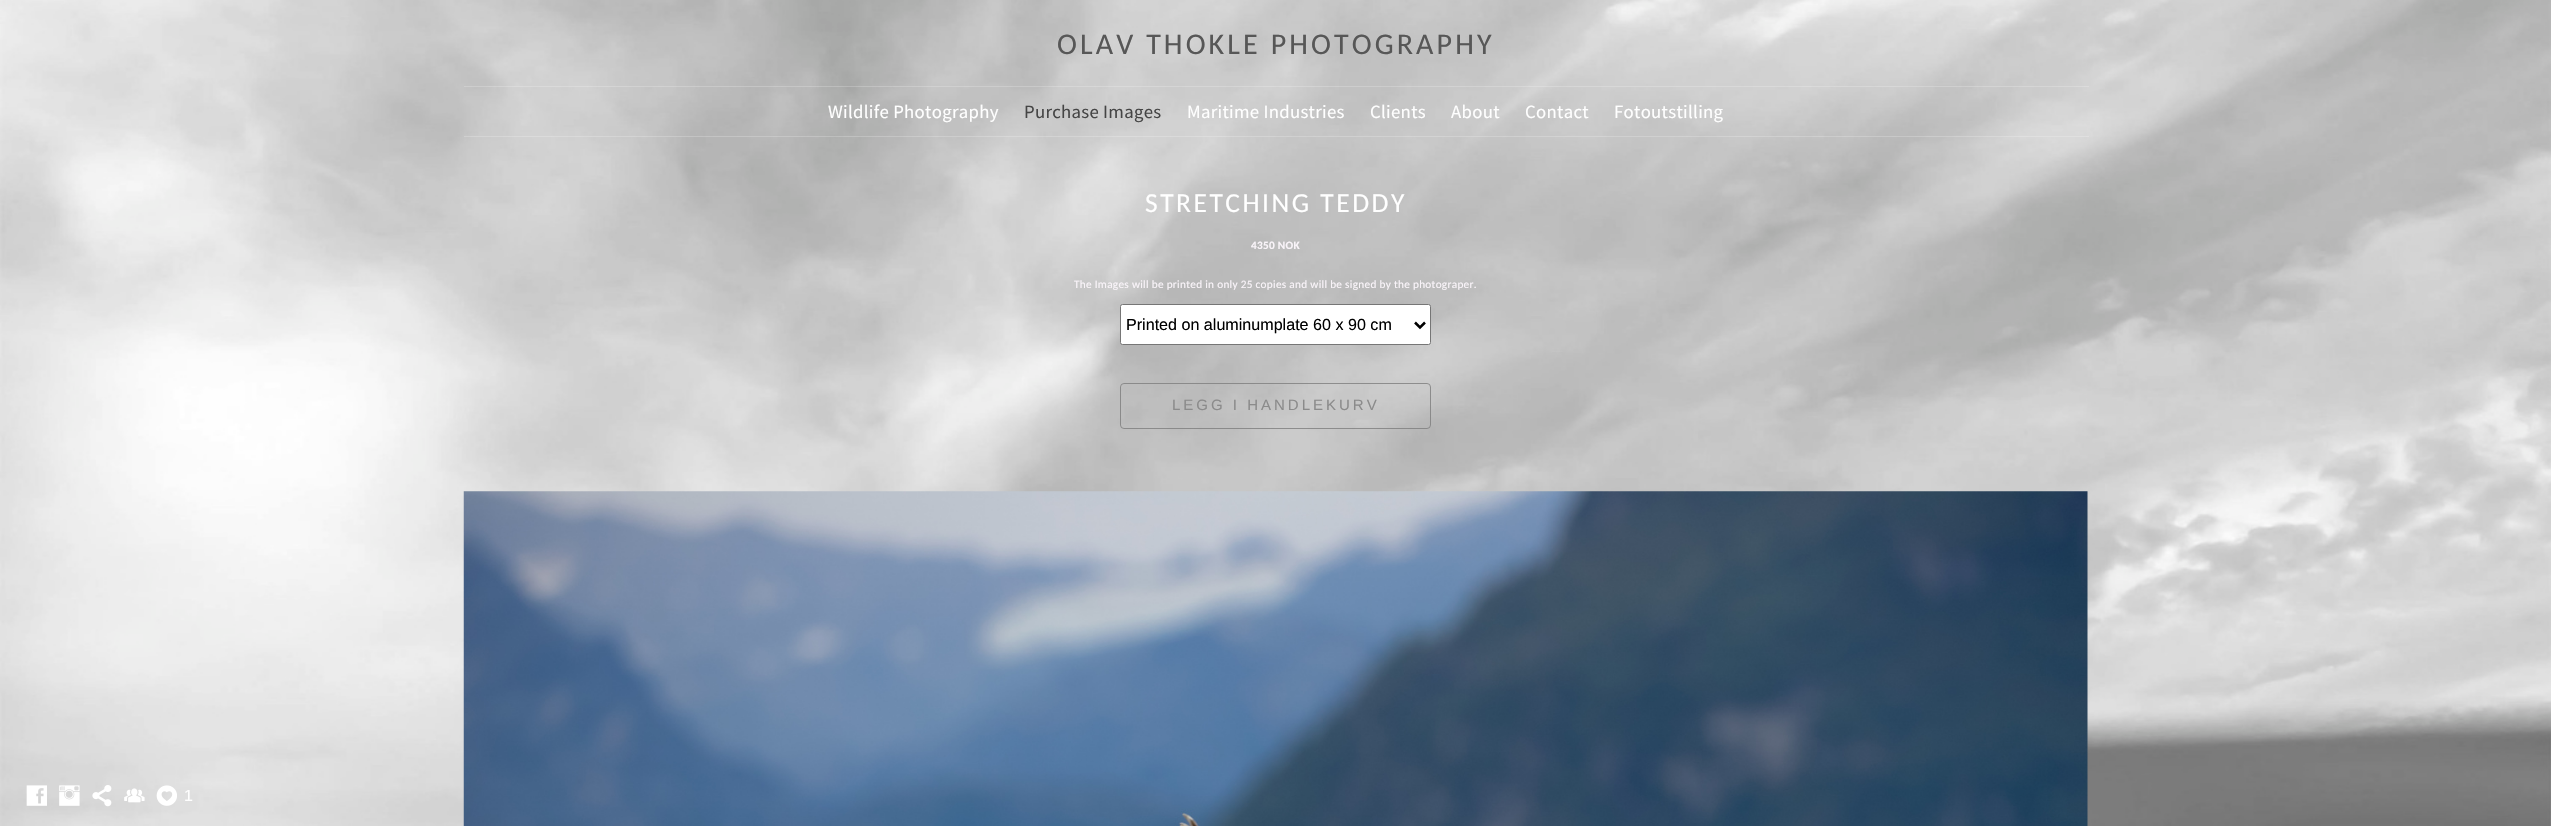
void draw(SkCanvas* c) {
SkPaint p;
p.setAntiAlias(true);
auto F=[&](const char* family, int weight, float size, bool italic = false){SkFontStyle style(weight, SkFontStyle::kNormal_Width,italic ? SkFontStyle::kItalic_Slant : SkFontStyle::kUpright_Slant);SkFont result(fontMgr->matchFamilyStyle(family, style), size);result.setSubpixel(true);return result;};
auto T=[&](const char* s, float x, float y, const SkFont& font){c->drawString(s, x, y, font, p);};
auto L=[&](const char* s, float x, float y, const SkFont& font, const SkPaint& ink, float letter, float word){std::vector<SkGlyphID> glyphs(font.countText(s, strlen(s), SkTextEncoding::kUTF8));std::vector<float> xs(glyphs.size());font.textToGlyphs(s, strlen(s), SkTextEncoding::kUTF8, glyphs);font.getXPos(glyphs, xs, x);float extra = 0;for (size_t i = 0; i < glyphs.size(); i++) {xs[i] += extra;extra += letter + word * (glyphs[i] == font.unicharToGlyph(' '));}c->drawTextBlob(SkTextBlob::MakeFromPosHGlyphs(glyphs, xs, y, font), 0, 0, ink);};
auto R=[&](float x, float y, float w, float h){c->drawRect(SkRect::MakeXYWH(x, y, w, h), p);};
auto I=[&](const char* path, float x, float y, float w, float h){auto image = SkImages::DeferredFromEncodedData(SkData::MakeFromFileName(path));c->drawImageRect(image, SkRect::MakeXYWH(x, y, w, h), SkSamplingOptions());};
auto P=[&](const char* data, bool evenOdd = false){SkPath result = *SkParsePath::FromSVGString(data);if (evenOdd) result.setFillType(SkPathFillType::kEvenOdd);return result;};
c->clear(0xffffffff);
I("1.png",0,0,2551,826);
auto f1 = F("Carlito",400,30);
p.setColor(0xff575757);
L("OLAV THOKLE PHOTOGRAPHY",1057,54,f1,p,3.1,0);
p.setColor(0x33ffffff);
R(464,86,1625,1);
R(464,136,1625,1);
auto f2 = F("Source Sans Pro",400,18.75);
p.setColor(0xffffffff);
L("Wildlife Photography",828,118,f2,p,.3,0);
p.setColor(0xff454545);
L("Purchase Images",1024,118,f2,p,.3,0);
p.setColor(0xffffffff);
L("Maritime Industries",1187,118,f2,p,.3,0);
L("Clients",1370,118,f2,p,.3,0);
L("About",1451,118,f2,p,.3,0);
L("Contact",1525,118,f2,p,.3,0);
L("Fotoutstilling",1614,118,f2,p,.3,0);
auto f3 = F("Carlito",400,27.5);
L("STRETCHING TEDDY",1145,212,f3,p,2.5,0);
auto f4 = F("Carlito",700,11.25);
p.setColor(0xfffaf5fa);
L("4350 NOK",1251,249,f4,p,.3,0);
auto f5 = F("Carlito",400,11.25);
L("The Images will be printed in only 25 copies and will be signed by the photograper.",1074,288,f5,p,.3,0);
p.setColor(0xffffffff);
c->drawRoundRect(SkRect::MakeXYWH(1120.5,304.5,310,40),2,2,p);
p.setStroke(true);
p.setStrokeWidth(1);
p.setColor(0xff767676);
c->drawRoundRect(SkRect::MakeXYWH(1120.5,304.5,310,40),2,2,p);
p.setStrokeWidth(2.5);
p.setColor(0xff000000);
c->drawPath(P("M1415 322.5l5 5l5-5"),p);
auto f6 = F("Liberation Sans",400,16.1);
p.setStroke(false);
T("Printed on aluminumplate 60 x 90 cm",1126,330,f6);
p.setStroke(true);
p.setStrokeWidth(1);
p.setColor(0xcc7d7d7d);
c->drawRoundRect(SkRect::MakeXYWH(1120.5,383.5,310,45),3.5,3.5,p);
auto f7 = F("Liberation Sans",400,15);
p.setStroke(false);
p.setColor(0xff8b8b8b);
L("LEGG I HANDLEKURV",1172,410,f7,p,3,0);
I("2.png",463,491,1625,335);
I("3.png",26,785,21,21);
I("4.png",59,785,21,21);
I("5.png",92,785,20,22);
I("6.png",124,788,21,15);
I("7.png",156,785,21,21);
auto f8 = F("Liberation Sans",400,16);
p.setColor(0xffffffff);
T("1",184,801,f8);
}
